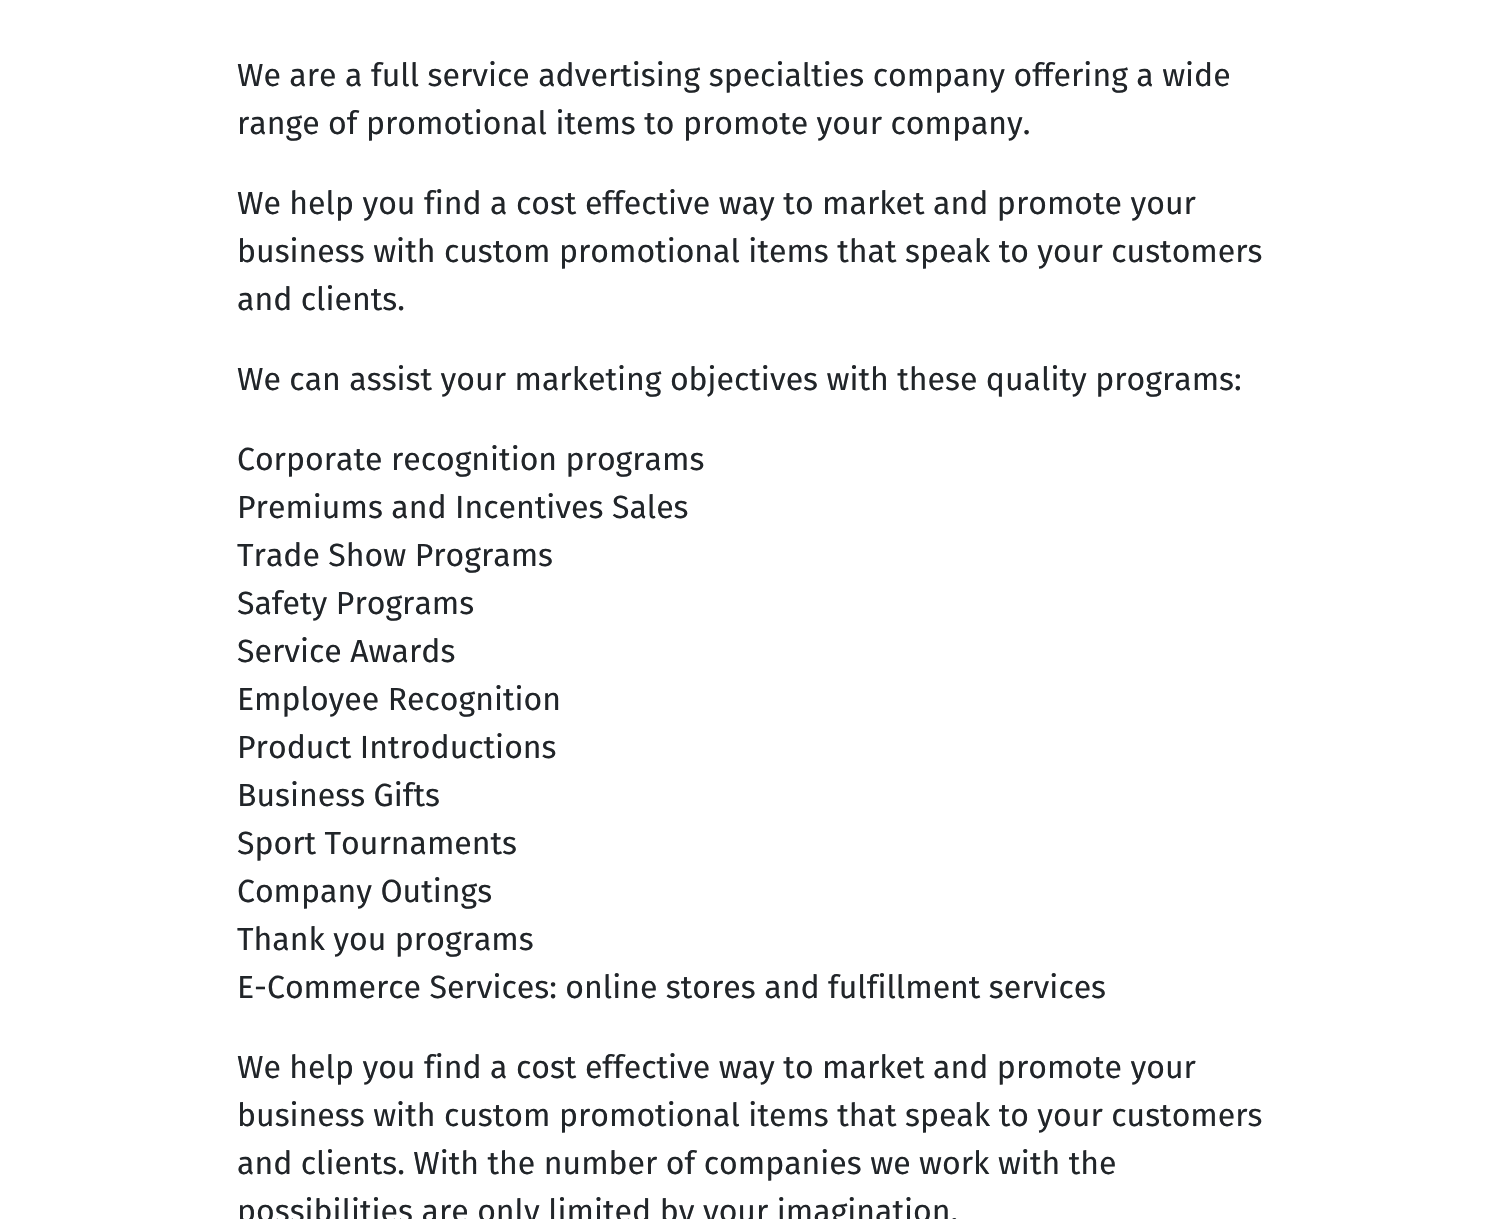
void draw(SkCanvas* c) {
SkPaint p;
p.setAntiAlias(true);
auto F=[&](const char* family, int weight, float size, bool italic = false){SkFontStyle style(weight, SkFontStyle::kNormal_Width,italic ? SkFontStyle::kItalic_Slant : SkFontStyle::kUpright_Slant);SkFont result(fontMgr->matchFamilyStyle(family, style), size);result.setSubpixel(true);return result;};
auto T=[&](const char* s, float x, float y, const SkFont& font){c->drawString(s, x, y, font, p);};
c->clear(0xffffffff);
auto f1 = F("Fira Sans",400,32);
p.setColor(0xff212529);
T("We are a full service advertising specialties company offering a wide",237,86,f1);
T("range of promotional items to promote your company.",237,134,f1);
T("We help you find a cost effective way to market and promote your",237,214,f1);
T("business with custom promotional items that speak to your customers",237,262,f1);
T("and clients.",237,310,f1);
T("We can assist your marketing objectives with these quality programs:",237,390,f1);
T("Corporate recognition programs",237,470,f1);
T("Premiums and Incentives Sales",237,518,f1);
T("Trade Show Programs",237,566,f1);
T("Safety Programs",237,614,f1);
T("Service Awards",237,662,f1);
T("Employee Recognition",237,710,f1);
T("Product Introductions",237,758,f1);
T("Business Gifts",237,806,f1);
T("Sport Tournaments",237,854,f1);
T("Company Outings",237,902,f1);
T("Thank you programs",237,950,f1);
T("E-Commerce Services: online stores and fulfillment services",237,998,f1);
T("We help you find a cost effective way to market and promote your",237,1078,f1);
T("business with custom promotional items that speak to your customers",237,1126,f1);
T("and clients. With the number of companies we work with the",237,1174,f1);
T("possibilities are only limited by your imagination.",237,1222,f1);
}
